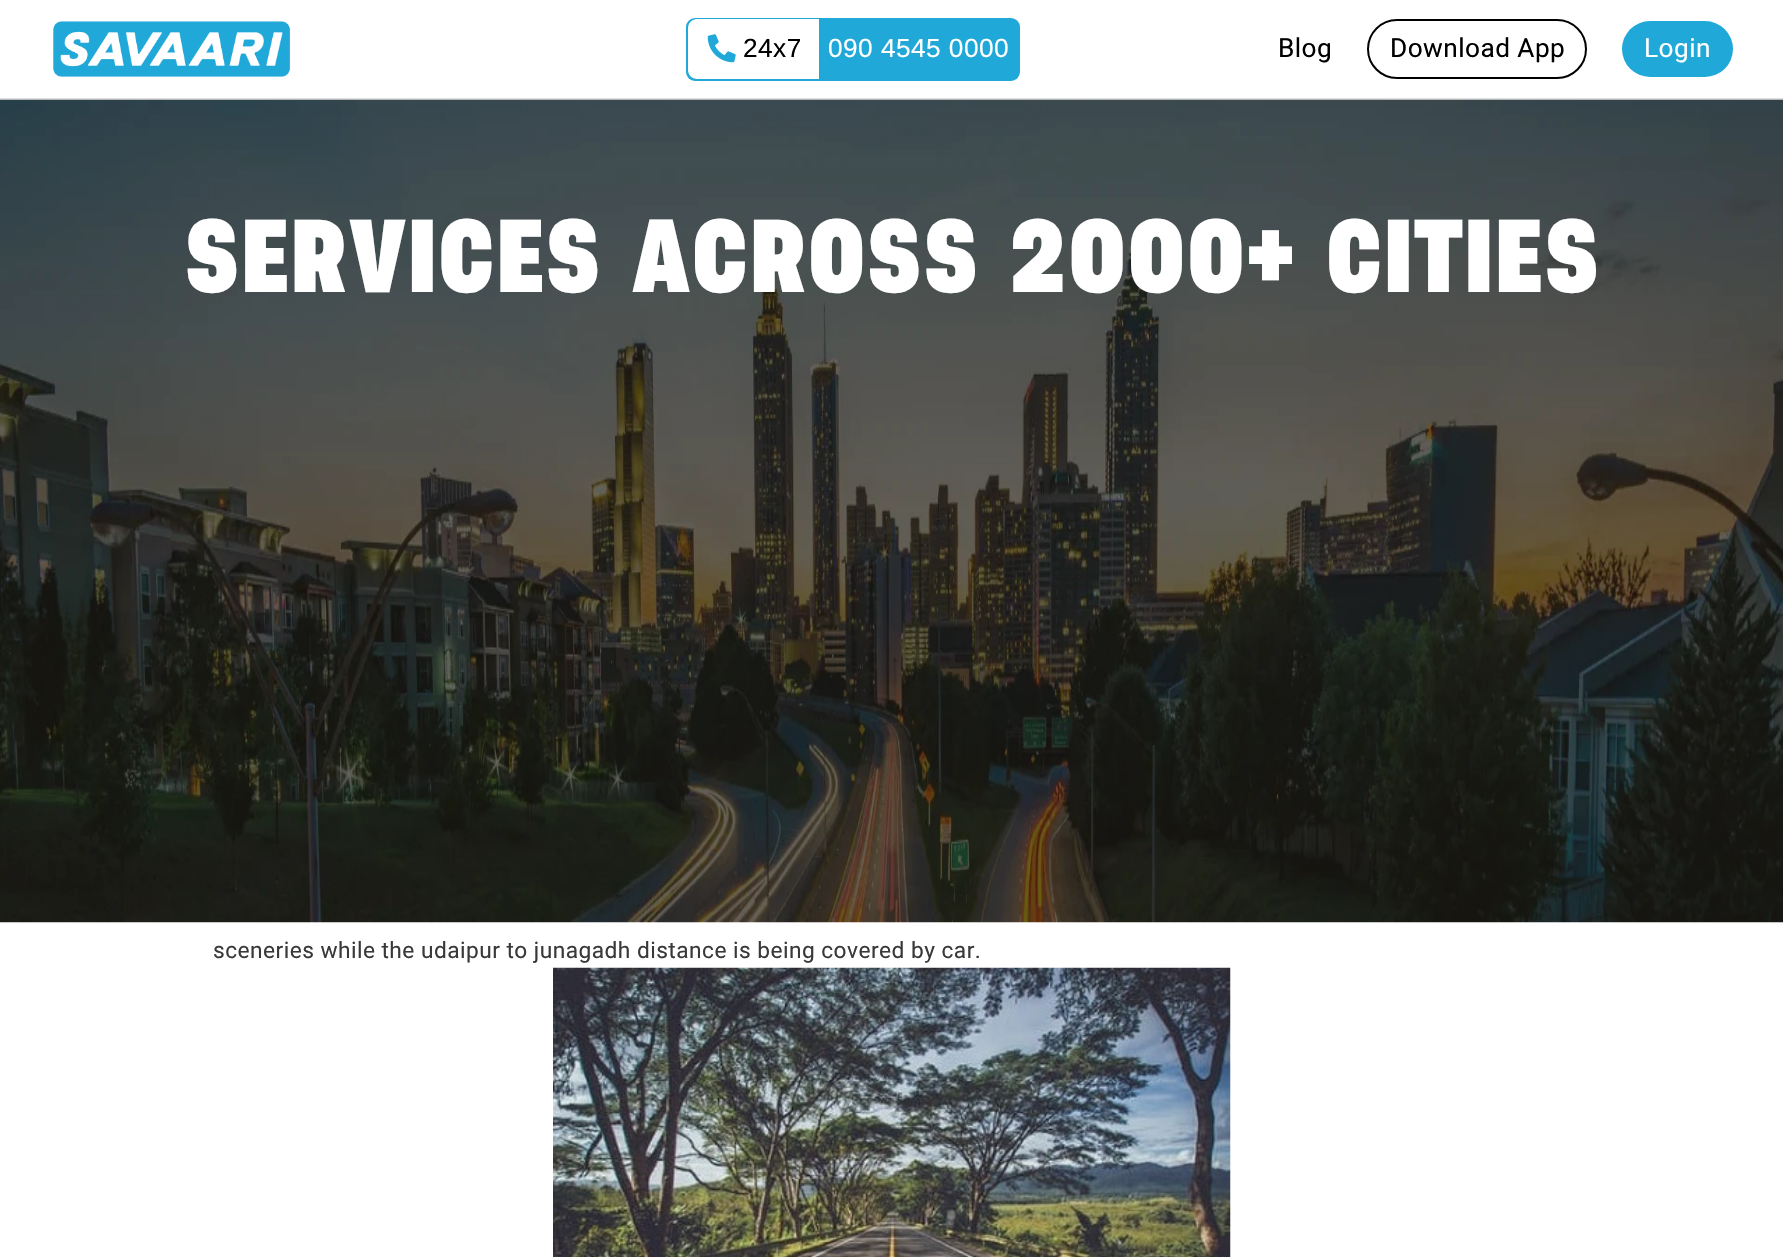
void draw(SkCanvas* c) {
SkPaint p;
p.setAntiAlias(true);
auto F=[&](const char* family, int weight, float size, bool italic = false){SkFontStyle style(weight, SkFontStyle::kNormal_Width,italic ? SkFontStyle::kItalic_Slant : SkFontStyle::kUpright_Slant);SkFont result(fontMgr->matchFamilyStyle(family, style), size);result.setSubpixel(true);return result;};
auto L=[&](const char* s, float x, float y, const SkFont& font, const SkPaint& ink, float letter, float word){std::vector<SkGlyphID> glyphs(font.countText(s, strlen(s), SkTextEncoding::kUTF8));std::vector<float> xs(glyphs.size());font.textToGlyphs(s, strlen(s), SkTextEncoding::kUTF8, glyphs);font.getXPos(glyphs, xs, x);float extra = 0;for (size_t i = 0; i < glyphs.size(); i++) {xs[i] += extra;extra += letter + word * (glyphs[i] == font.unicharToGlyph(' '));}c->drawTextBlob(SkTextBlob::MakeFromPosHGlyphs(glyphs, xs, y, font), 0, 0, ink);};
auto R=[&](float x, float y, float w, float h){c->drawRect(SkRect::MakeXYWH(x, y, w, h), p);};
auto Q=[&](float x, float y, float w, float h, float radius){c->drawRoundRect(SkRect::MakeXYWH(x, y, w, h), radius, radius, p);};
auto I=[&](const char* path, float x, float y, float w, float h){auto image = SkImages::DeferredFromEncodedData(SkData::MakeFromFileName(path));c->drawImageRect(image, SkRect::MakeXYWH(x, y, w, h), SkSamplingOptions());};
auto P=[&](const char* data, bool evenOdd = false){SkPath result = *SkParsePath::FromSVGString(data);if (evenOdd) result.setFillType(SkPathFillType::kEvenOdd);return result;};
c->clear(0xffffffff);
p.setColor(0xffdedede);
R(0,98,1783,2);
I("1.png",53,21,237,56);
p.setColor(0xff20a8d9);
Q(686,18,334,63,9);
p.setColor(0xffffffff);
c->drawPath(P("M697 19h122v60h-122c-5 0-9-4-9-9v-42c0-5 4-9 9-9z"),p);
I("2.png",707,34,29,29);
auto f1 = F("Liberation Sans",400,26.25);
p.setColor(0xff000000);
L("24x7",743,57,f1,p,.45,0);
p.setColor(0xffffffff);
L("090 4545 0000",828,57,f1,p,.45,0);
auto f2 = F("Roboto",400,26.25);
p.setColor(0xff000000);
L("Blog",1278,57,f2,p,.45,0);
p.setStroke(true);
p.setStrokeWidth(2);
c->drawRoundRect(SkRect::MakeXYWH(1368,20,218,58),29,29,p);
p.setStroke(false);
L("Download App",1390,57,f2,p,.45,0);
p.setColor(0xff20a8d9);
Q(1622,21,111,56,28);
p.setColor(0xffffffff);
L("Login",1644,57,f2,p,.45,0);
I("3.png",0,99,1783,824);
auto f3 = F("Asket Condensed",800,96.25);
L("SERVICES ACROSS 2000+ CITIES",184,292,f3,p,.45,9);
auto f4 = F("Roboto",400,22.75);
p.setColor(0xff393939);
L("sceneries while the udaipur to junagadh distance is being covered by car.",213,958,f4,p,.45,0);
I("4.png",553,967,678,290);
}
